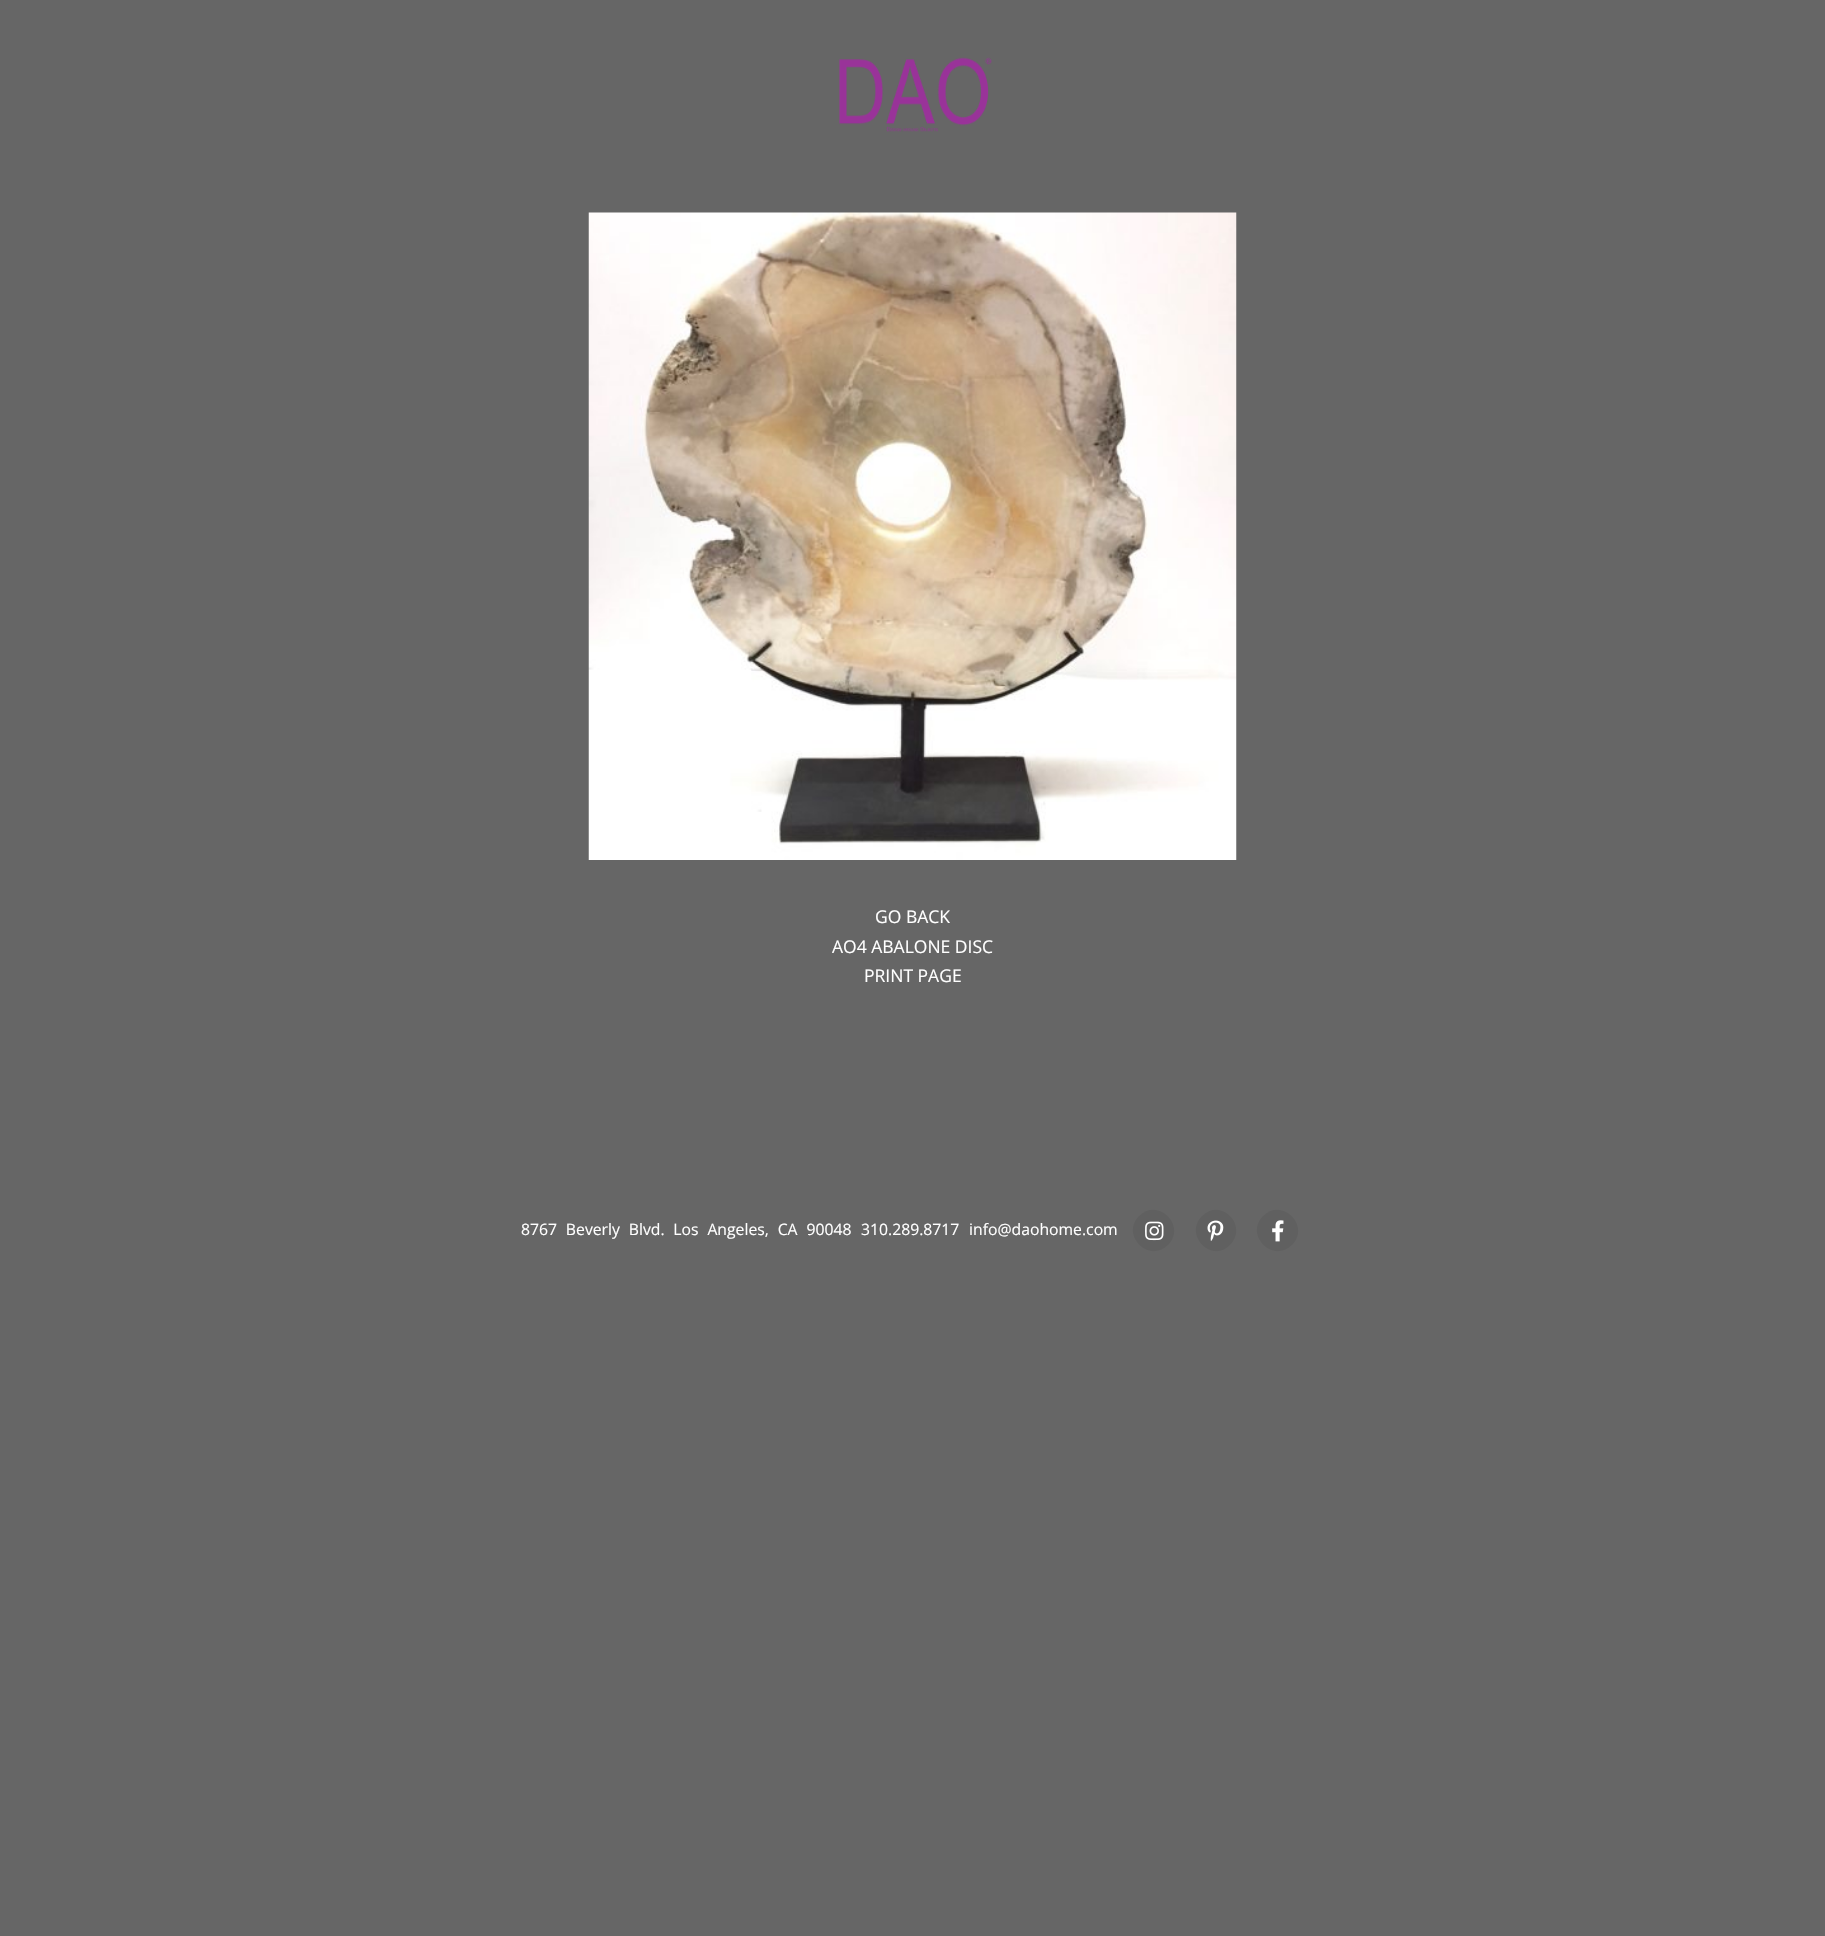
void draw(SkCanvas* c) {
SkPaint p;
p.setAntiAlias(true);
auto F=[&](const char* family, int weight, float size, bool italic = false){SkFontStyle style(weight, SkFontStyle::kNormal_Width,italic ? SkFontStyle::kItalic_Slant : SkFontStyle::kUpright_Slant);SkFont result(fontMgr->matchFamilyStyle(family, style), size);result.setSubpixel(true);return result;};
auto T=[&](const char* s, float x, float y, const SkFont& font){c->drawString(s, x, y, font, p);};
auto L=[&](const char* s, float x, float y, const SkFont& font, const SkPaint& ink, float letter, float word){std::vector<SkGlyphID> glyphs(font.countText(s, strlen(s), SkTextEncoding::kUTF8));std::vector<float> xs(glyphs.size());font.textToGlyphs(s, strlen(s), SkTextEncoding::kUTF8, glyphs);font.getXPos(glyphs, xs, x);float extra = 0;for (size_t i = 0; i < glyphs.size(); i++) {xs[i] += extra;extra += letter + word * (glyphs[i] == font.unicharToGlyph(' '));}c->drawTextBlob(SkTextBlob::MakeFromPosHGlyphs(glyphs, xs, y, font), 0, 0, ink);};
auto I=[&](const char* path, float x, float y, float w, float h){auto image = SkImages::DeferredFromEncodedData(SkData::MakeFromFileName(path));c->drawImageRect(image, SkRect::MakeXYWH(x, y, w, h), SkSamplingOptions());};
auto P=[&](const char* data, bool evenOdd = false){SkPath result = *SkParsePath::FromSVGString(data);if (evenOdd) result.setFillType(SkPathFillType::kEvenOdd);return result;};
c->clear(0xff666666);
I("1.png",839,57,153,75);
I("2.png",588,212,649,648);
auto f1 = F("Open Sans",400,17.5);
p.setColor(0xffffffff);
T("GO BACK",875,923,f1);
T("AO4 ABALONE DISC",832,953,f1);
T("PRINT PAGE",864,982,f1);
auto f2 = F("Open Sans",400,15.75);
L("8767 Beverly Blvd. Los Angeles, CA 90048",521,1235,f2,p,0,4.75);
T("310.289.8717",861,1235,f2);
T("info@daohome.com",969,1235,f2);
p.setColor(0xff606060);
c->drawPath(P("M1139 1216c19-19 48 10 29 29c-19 19-48-10-29-29z"),p);
I("3.png",1145,1221,19,20);
c->drawPath(P("M1202 1216c19-19 47 10 28 29c-18 19-47-10-28-29z"),p);
I("4.png",1207,1220,17,21);
c->drawPath(P("M1263 1216c19-19 48 10 29 29c-19 19-48-10-29-29z"),p);
I("5.png",1272,1220,12,22);
}
